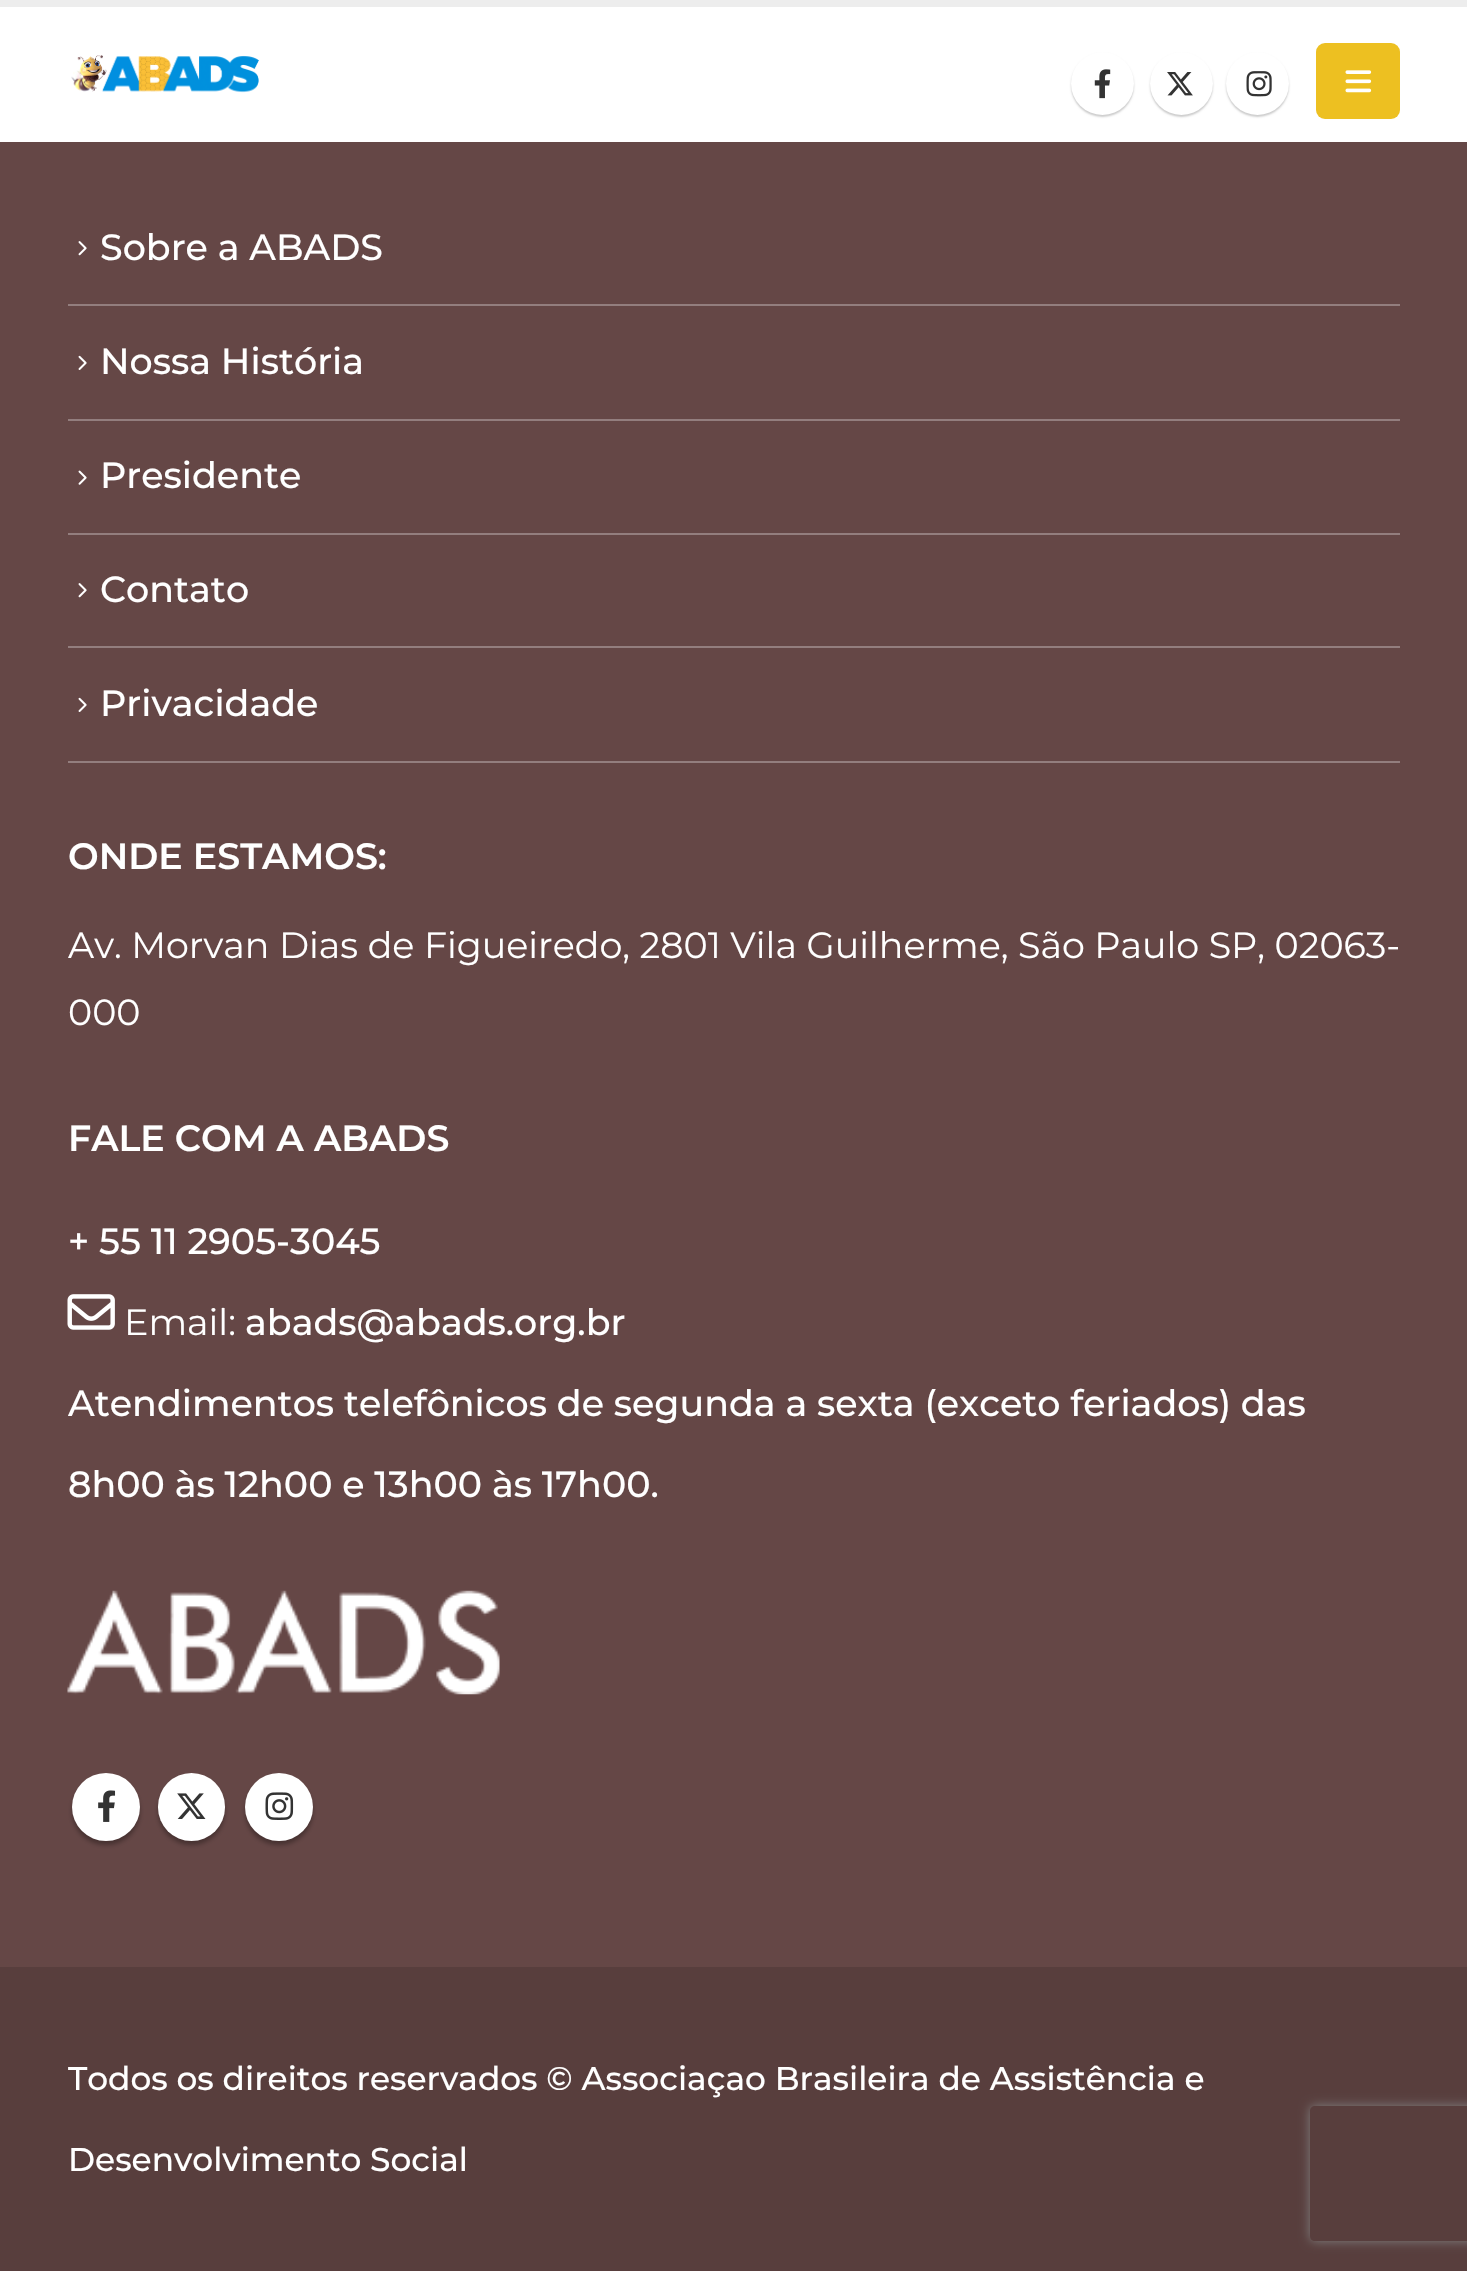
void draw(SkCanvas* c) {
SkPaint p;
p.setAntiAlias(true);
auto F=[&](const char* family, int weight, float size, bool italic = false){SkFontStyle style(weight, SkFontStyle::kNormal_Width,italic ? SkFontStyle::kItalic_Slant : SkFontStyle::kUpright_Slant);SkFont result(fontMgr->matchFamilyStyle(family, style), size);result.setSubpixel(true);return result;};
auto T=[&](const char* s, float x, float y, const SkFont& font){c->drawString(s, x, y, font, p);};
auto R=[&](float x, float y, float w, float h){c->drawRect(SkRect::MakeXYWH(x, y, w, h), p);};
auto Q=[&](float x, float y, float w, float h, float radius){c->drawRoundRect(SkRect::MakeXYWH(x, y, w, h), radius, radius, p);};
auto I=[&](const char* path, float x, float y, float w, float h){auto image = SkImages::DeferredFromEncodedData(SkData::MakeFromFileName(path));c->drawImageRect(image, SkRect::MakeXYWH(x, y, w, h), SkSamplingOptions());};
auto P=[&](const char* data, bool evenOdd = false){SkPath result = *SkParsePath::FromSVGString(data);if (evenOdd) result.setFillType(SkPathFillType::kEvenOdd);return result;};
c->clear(0xff654746);
p.setColor(0xffffffff);
R(0,7,1467,135);
p.setColor(0xffededed);
R(0,0,1467,7);
I("1.png",71,55,188,38);
p.setColor(0x33000000);
p.setMaskFilter(SkMaskFilter::MakeBlur(kNormal_SkBlurStyle, 1));
c->drawRoundRect(SkRect::MakeXYWH(1071,54,63,63),31.5,31.5,p);
p.setMaskFilter(nullptr);
p.setColor(0xffffffff);
c->drawCircle(1102.5,83.5,31.5,p);
I("2.png",1094,69,17,30);
p.setColor(0x33000000);
p.setMaskFilter(SkMaskFilter::MakeBlur(kNormal_SkBlurStyle, 1));
c->drawRoundRect(SkRect::MakeXYWH(1150,54,63,63),31.5,31.5,p);
p.setMaskFilter(nullptr);
p.setColor(0xffffffff);
c->drawCircle(1181.5,83.5,31.5,p);
I("3.png",1167,72,26,24);
p.setColor(0x33000000);
p.setMaskFilter(SkMaskFilter::MakeBlur(kNormal_SkBlurStyle, 1));
c->drawRoundRect(SkRect::MakeXYWH(1226,54,63,63),31.5,31.5,p);
p.setMaskFilter(nullptr);
p.setColor(0xffffffff);
c->drawCircle(1257.5,83.5,31.5,p);
I("4.png",1246,71,26,26);
p.setColor(0xffedc021);
Q(1316,43,84,76,9);
I("5.png",1345,70,27,23);
p.setColor(0xff937e7e);
R(68,761,1332,2);
I("6.png",78,241,9,15);
auto f1 = F("Montserrat",500,36.45);
p.setColor(0xffffffff);
T("Sobre a ABADS",100,260,f1);
p.setColor(0xff937e7e);
R(68,304,1332,2);
I("7.png",78,355,9,15);
p.setColor(0xffffffff);
T("Nossa História",100,374,f1);
p.setColor(0xff937e7e);
R(68,419,1332,2);
I("8.png",78,470,9,15);
p.setColor(0xffffffff);
T("Presidente",100,488,f1);
p.setColor(0xff937e7e);
R(68,533,1332,2);
I("6.png",78,583,9,15);
p.setColor(0xffffffff);
T("Contato",100,602,f1);
p.setColor(0xff937e7e);
R(68,646,1332,2);
I("7.png",78,697,9,15);
p.setColor(0xffffffff);
T("Privacidade",100,716,f1);
auto f2 = F("Montserrat",600,36.45);
T("ONDE ESTAMOS:",68,869,f2);
auto f3 = F("Montserrat",400,36.45);
T("Av. Morvan Dias de Figueiredo, 2801 Vila Guilherme, São Paulo SP, 02063-",68,958,f3);
T("000",68,1025,f3);
T("FALE COM A ABADS",68,1151,f2);
T("+ 55 11 2905-3045",68,1254,f1);
I("9.png",67,1294,48,36);
T("Email:",124,1335,f3);
T("abads@abads.org.br",245,1335,f1);
T("Atendimentos telefônicos de segunda a sexta (exceto feriados) das",68,1416,f1);
T("8h00 às 12h00 e 13h00 às 17h00.",68,1497,f1);
I("10.png",67,1590,433,105);
p.setColor(0x4d000000);
p.setMaskFilter(SkMaskFilter::MakeBlur(kNormal_SkBlurStyle, 2));
c->drawRoundRect(SkRect::MakeXYWH(72,1778,68,67),33.5,33.5,p);
p.setMaskFilter(nullptr);
p.setColor(0xffffffff);
c->drawCircle(106,1807,34,p);
I("11.png",98,1790,18,32);
p.setColor(0x4d000000);
p.setMaskFilter(SkMaskFilter::MakeBlur(kNormal_SkBlurStyle, 2));
c->drawRoundRect(SkRect::MakeXYWH(158,1778,67,67),33.5,33.5,p);
p.setMaskFilter(nullptr);
p.setColor(0xffffffff);
Q(158,1773,67,68,33.5);
I("12.png",177,1793,29,26);
p.setColor(0x4d000000);
p.setMaskFilter(SkMaskFilter::MakeBlur(kNormal_SkBlurStyle, 2));
c->drawRoundRect(SkRect::MakeXYWH(245,1778,68,67),33.5,33.5,p);
p.setMaskFilter(nullptr);
p.setColor(0xffffffff);
c->drawCircle(279,1807,34,p);
I("13.png",265,1792,29,28);
p.setColor(0xff583e3d);
R(0,1967,1467,304);
auto f4 = F("Montserrat",500,32.8);
p.setColor(0xffffffff);
T("Todos os direitos reservados © Associaçao Brasileira de Assistência e",68,2090,f4);
T("Desenvolvimento Social",68,2171,f4);
c->save();
c->clipPath(P("M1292 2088h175v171h-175zm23 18h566c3 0 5 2 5 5v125c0 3-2 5-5 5h-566c-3 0-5-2-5-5v-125c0-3 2-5 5-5z",true),true);
p.setColor(0xff808080);
p.setMaskFilter(SkMaskFilter::MakeBlur(kNormal_SkBlurStyle, 5.5));
c->drawRoundRect(SkRect::MakeXYWH(1310,2106,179,135),5,5,p);
p.setMaskFilter(nullptr);
c->restore();
}
